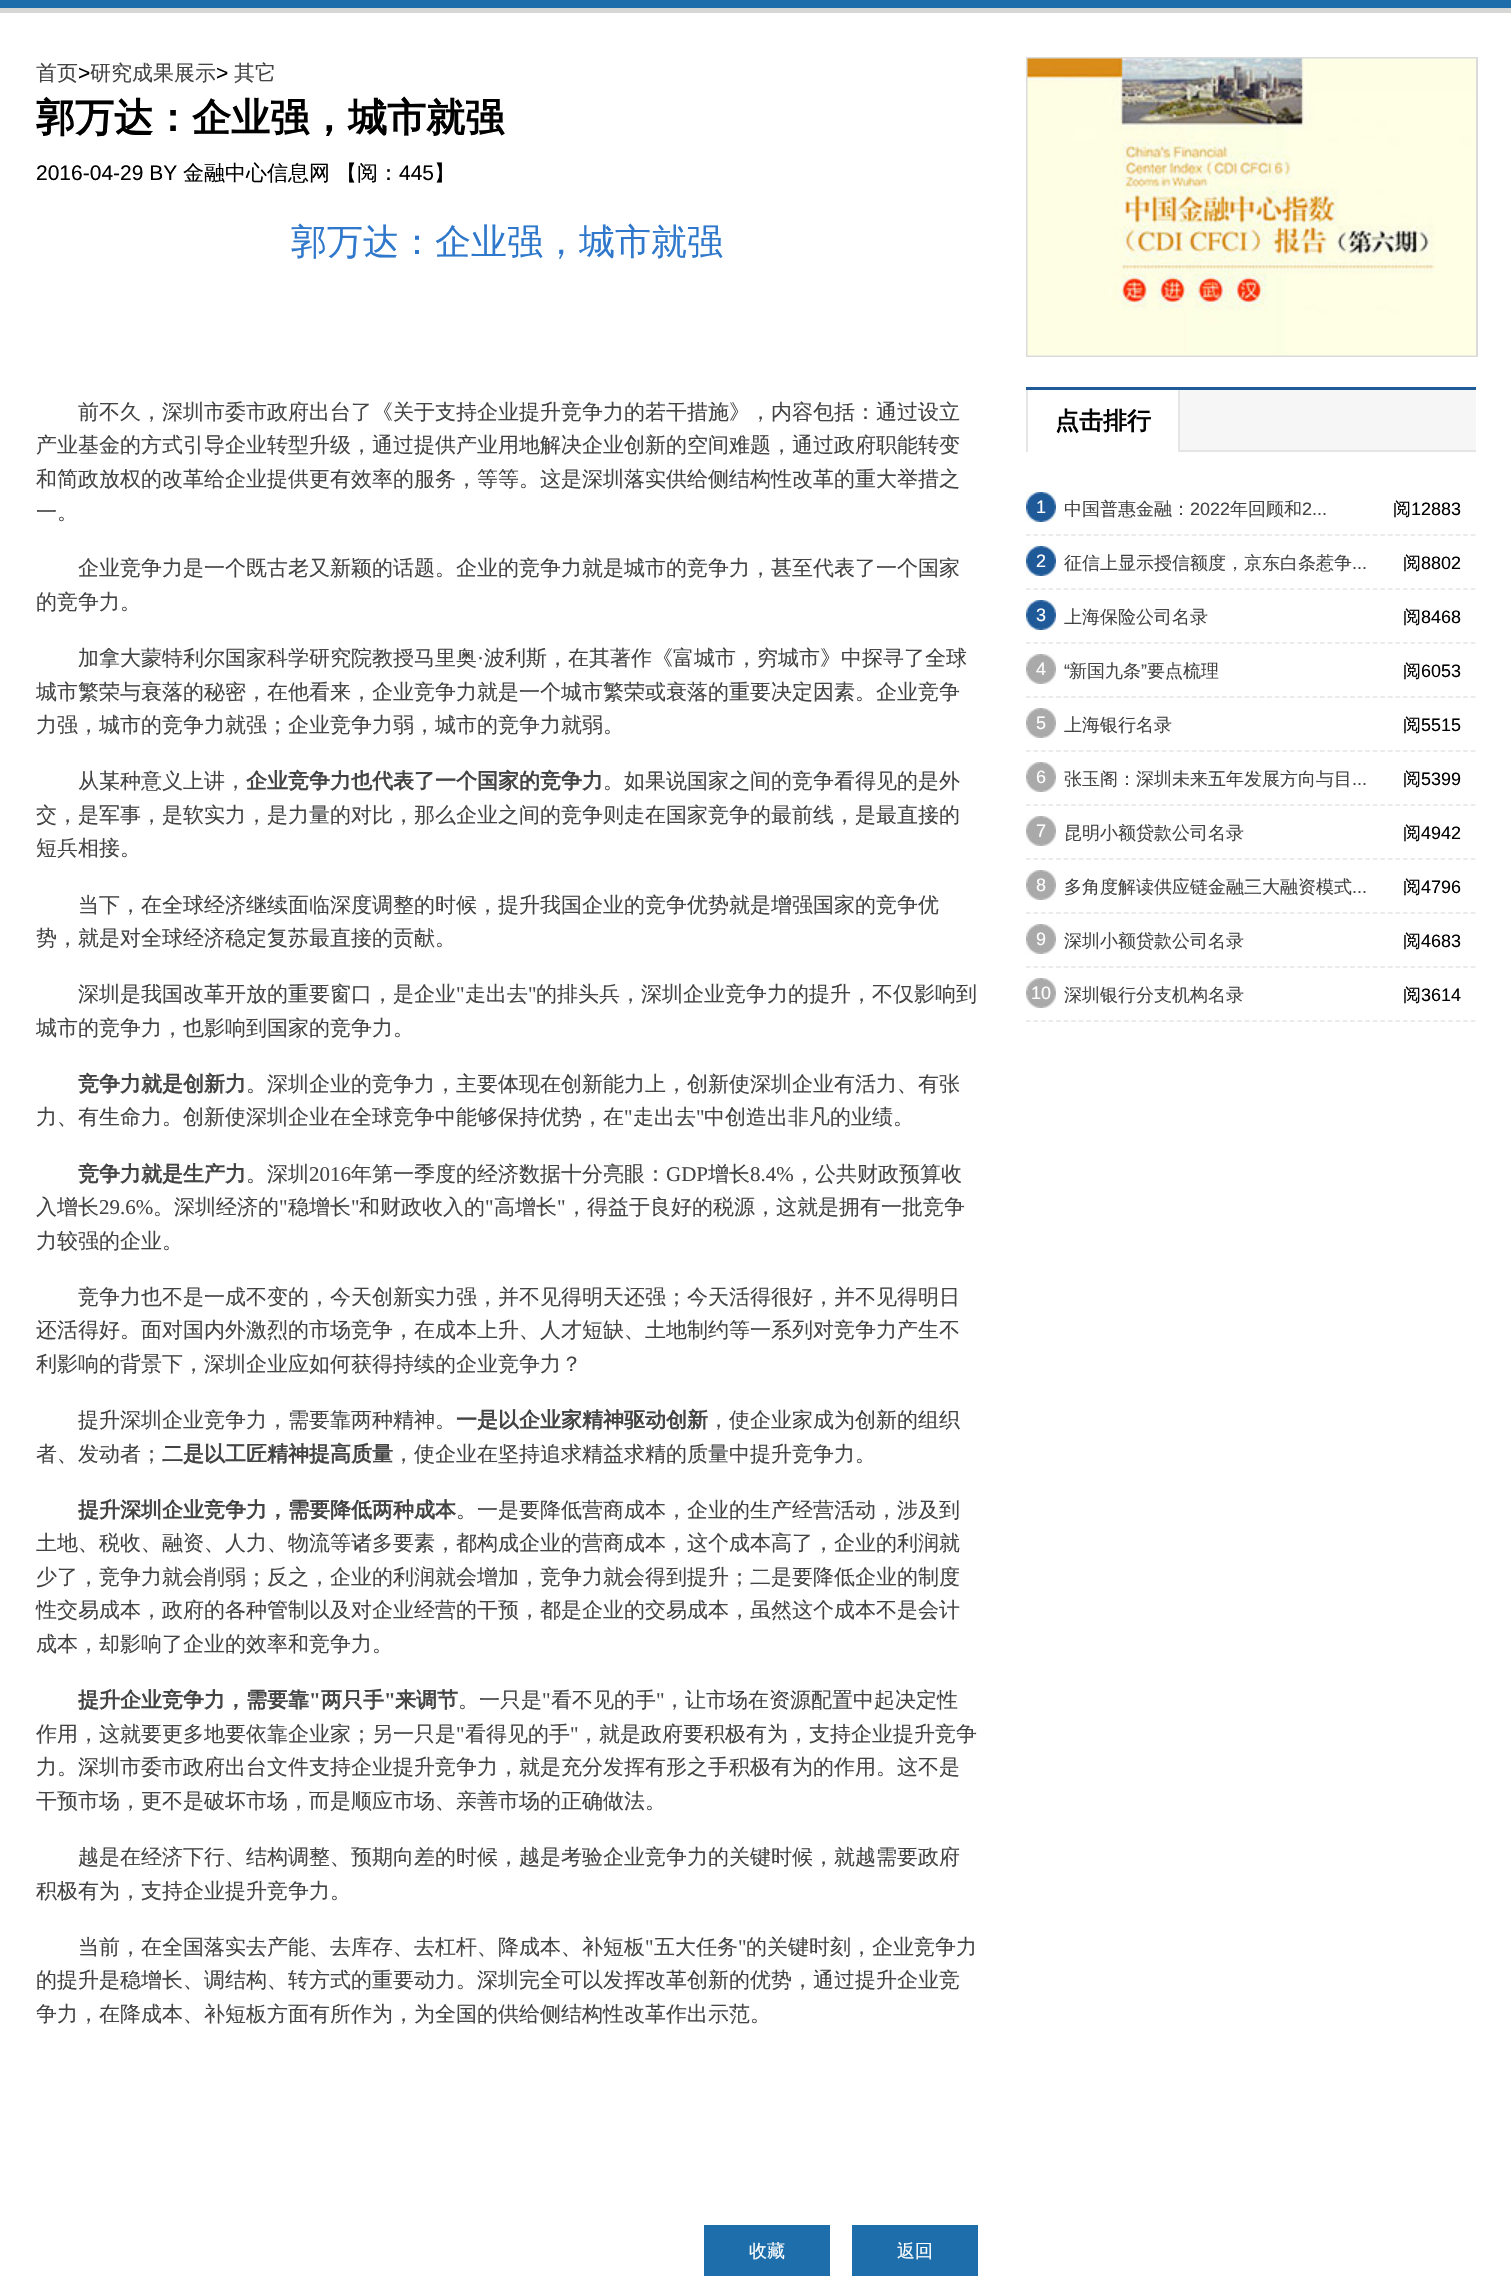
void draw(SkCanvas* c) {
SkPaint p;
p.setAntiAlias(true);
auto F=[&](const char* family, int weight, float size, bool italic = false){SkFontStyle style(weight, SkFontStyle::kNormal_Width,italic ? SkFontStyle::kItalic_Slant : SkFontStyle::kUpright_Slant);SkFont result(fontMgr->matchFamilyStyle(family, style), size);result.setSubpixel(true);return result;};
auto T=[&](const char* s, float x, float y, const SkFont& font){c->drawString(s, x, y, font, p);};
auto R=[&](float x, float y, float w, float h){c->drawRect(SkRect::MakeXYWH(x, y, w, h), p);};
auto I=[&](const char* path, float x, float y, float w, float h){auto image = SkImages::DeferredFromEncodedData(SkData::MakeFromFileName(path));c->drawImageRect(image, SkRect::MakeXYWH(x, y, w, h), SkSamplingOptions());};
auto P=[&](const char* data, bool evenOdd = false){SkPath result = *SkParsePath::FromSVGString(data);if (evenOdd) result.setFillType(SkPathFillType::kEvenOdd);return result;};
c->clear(0xffffffff);
p.setColor(0xff1e6eab);
R(0,0,1511,8);
p.setColor(0xffd7d7d5);
R(0,8,1511,5);
auto f1 = F("WenQuanYi Zen Hei",500,21);
p.setColor(0xff444444);
T("首页",36,80,f1);
auto f2 = F("Liberation Sans",400,21);
p.setColor(0xff000000);
T(">",78,80,f2);
p.setColor(0xff444444);
T("研究成果展示",90,80,f1);
p.setColor(0xff000000);
T(">",216,80,f2);
p.setColor(0xff444444);
T("其它",234,80,f1);
auto f3 = F("WenQuanYi Zen Hei",700,39);
p.setColor(0xff000000);
T("郭万达：企业强，城市就强",36,131,f3);
T("2016-04-29 BY",36,180,f2);
T("金融中心信息网",183,180,f1);
T("【阅：",336,180,f1);
T("445",399,180,f2);
T("】",434,180,f1);
auto f4 = F("WenQuanYi Zen Hei",500,36);
p.setColor(0xff2f78cb);
T("郭万达：企业强，城市就强",291,254,f4);
p.setColor(0xff444444);
T("前不久，深圳市委市政府出台了《关于支持企业提升竞争力的若干措施》，内容包括：通过设立",78,419,f1);
T("产业基金的方式引导企业转型升级，通过提供产业用地解决企业创新的空间难题，通过政府职能转变",36,452,f1);
T("和简政放权的改革给企业提供更有效率的服务，等等。这是深圳落实供给侧结构性改革的重大举措之",36,486,f1);
T("一。",36,519,f1);
T("企业竞争力是一个既古老又新颖的话题。企业的竞争力就是城市的竞争力，甚至代表了一个国家",78,575,f1);
T("的竞争力。",36,609,f1);
T("加拿大蒙特利尔国家科学研究院教授马里奥",78,665,f1);
auto f5 = F("Liberation Serif",400,21);
T("·",477,665,f5);
T("波利斯，在其著作《富城市，穷城市》中探寻了全球",484,665,f1);
T("城市繁荣与衰落的秘密，在他看来，企业竞争力就是一个城市繁荣或衰落的重要决定因素。企业竞争",36,699,f1);
T("力强，城市的竞争力就强；企业竞争力弱，城市的竞争力就弱。",36,732,f1);
T("从某种意义上讲，",78,788,f1);
auto f6 = F("WenQuanYi Zen Hei",700,21);
T("企业竞争力也代表了一个国家的竞争力",246,788,f6);
T("。如果说国家之间的竞争看得见的是外",603,788,f1);
T("交，是军事，是软实力，是力量的对比，那么企业之间的竞争则走在国家竞争的最前线，是最直接的",36,822,f1);
T("短兵相接。",36,855,f1);
T("当下，在全球经济继续面临深度调整的时候，提升我国企业的竞争优势就是增强国家的竞争优",78,912,f1);
T("势，就是对全球经济稳定复苏最直接的贡献。",36,945,f1);
T("深圳是我国改革开放的重要窗口，是企业",78,1001,f1);
T("\"",456,1001,f5);
T("走出去",465,1001,f1);
T("\"",528,1001,f5);
T("的排头兵，深圳企业竞争力的提升，不仅影响到",536,1001,f1);
T("城市的竞争力，也影响到国家的竞争力。",36,1035,f1);
T("竞争力就是创新力",78,1091,f6);
T("。深圳企业的竞争力，主要体现在创新能力上，创新使深圳企业有活力、有张",246,1091,f1);
T("力、有生命力。创新使深圳企业在全球竞争中能够保持优势，在",36,1124,f1);
T("\"",624,1124,f5);
T("走出去",633,1124,f1);
T("\"",696,1124,f5);
T("中创造出非凡的业绩。",704,1124,f1);
T("竞争力就是生产力",78,1181,f6);
T("。深圳",246,1181,f1);
T("2016",309,1181,f5);
T("年第一季度的经济数据十分亮眼：",351,1181,f1);
T("GDP",666,1181,f5);
T("增长",708,1181,f1);
T("8.4%",750,1181,f5);
T("，公共财政预算收",794,1181,f1);
T("入增长",36,1214,f1);
T("29.6%",99,1214,f5);
T("。深圳经济的",153,1214,f1);
T("\"",279,1214,f5);
T("稳增长",288,1214,f1);
T("\"",351,1214,f5);
T("和财政收入的",359,1214,f1);
T("\"",485,1214,f5);
T("高增长",494,1214,f1);
T("\"",557,1214,f5);
T("，得益于良好的税源，这就是拥有一批竞争",566,1214,f1);
T("力较强的企业。",36,1248,f1);
T("竞争力也不是一成不变的，今天创新实力强，并不见得明天还强；今天活得很好，并不见得明日",78,1304,f1);
T("还活得好。面对国内外激烈的市场竞争，在成本上升、人才短缺、土地制约等一系列对竞争力产生不",36,1337,f1);
T("利影响的背景下，深圳企业应如何获得持续的企业竞争力？",36,1371,f1);
T("提升深圳企业竞争力，需要靠两种精神。",78,1427,f1);
T("一是以企业家精神驱动创新",456,1427,f6);
T("，使企业家成为创新的组织",708,1427,f1);
T("者、发动者；",36,1461,f1);
T("二是以工匠精神提高质量",162,1461,f6);
T("，使企业在坚持追求精益求精的质量中提升竞争力。",393,1461,f1);
T("提升深圳企业竞争力，需要降低两种成本",78,1517,f6);
T("。一是要降低营商成本，企业的生产经营活动，涉及到",456,1517,f1);
T("土地、税收、融资、人力、物流等诸多要素，都构成企业的营商成本，这个成本高了，企业的利润就",36,1550,f1);
T("少了，竞争力就会削弱；反之，企业的利润就会增加，竞争力就会得到提升；二是要降低企业的制度",36,1584,f1);
T("性交易成本，政府的各种管制以及对企业经营的干预，都是企业的交易成本，虽然这个成本不是会计",36,1617,f1);
T("成本，却影响了企业的效率和竞争力。",36,1651,f1);
T("提升企业竞争力，需要靠",78,1707,f6);
auto f7 = F("Liberation Serif",700,21);
T("\"",309,1707,f7);
T("两只手",321,1707,f6);
T("\"",384,1707,f7);
T("来调节",395,1707,f6);
T("。一只是",458,1707,f1);
T("\"",542,1707,f5);
T("看不见的手",551,1707,f1);
T("\"",656,1707,f5);
T("，让市场在资源配置中起决定性",664,1707,f1);
T("作用，这就要更多地要依靠企业家；另一只是",36,1741,f1);
T("\"",456,1741,f5);
T("看得见的手",465,1741,f1);
T("\"",570,1741,f5);
T("，就是政府要积极有为，支持企业提升竞争",578,1741,f1);
T("力。深圳市委市政府出台文件支持企业提升竞争力，就是充分发挥有形之手积极有为的作用。这不是",36,1774,f1);
T("干预市场，更不是破坏市场，而是顺应市场、亲善市场的正确做法。",36,1808,f1);
T("越是在经济下行、结构调整、预期向差的时候，越是考验企业竞争力的关键时候，就越需要政府",78,1864,f1);
T("积极有为，支持企业提升竞争力。",36,1898,f1);
T("当前，在全国落实去产能、去库存、去杠杆、降成本、补短板",78,1954,f1);
T("\"",645,1954,f5);
T("五大任务",654,1954,f1);
T("\"",738,1954,f5);
T("的关键时刻，企业竞争力",746,1954,f1);
T("的提升是稳增长、调结构、转方式的重要动力。深圳完全可以发挥改革创新的优势，通过提升企业竞",36,1987,f1);
T("争力，在降成本、补短板方面有所作为，为全国的供给侧结构性改革作出示范。",36,2021,f1);
p.setColor(0xff1e6eab);
R(704,2225,126,51);
auto f8 = F("WenQuanYi Zen Hei",500,18);
p.setColor(0xffffffff);
T("收藏",749,2257,f8);
p.setColor(0xff1e6eab);
R(852,2225,126,51);
p.setColor(0xffffffff);
T("返回",897,2257,f8);
p.setStroke(true);
p.setStrokeWidth(2);
p.setColor(0xffdbdbdb);
c->drawRect(SkRect::MakeXYWH(1027,58,450,298),p);
I("1.png",1027,58,449,298);
p.setStroke(false);
p.setColor(0xfff5f6f5);
R(1180,390,296,60);
p.setColor(0xff1f5a99);
R(1026,387,450,3);
p.setColor(0xffe5e5e5);
R(1180,450,296,2);
R(1178,390,2,62);
R(1026,390,2,62);
auto f9 = F("WenQuanYi Zen Hei",700,24);
p.setColor(0xff000000);
T("点击排行",1055,429,f9);
p.setStroke(true);
p.setStrokeWidth(1.5);
p.setColor(0xffe5e5e5);
p.setPathEffect(SkDashPathEffect::Make({{4.5f,3.04f}}, 0));
c->drawPath(P("M1026 535h450"),p);
p.setPathEffect(nullptr);
I("2.png",1026,492,30,30);
auto f10 = F("Liberation Sans",400,18);
p.setStroke(false);
p.setColor(0xffffffff);
T("1",1036,513,f10);
p.setColor(0xff444444);
T("中国普惠金融：",1064,515,f8);
T("2022",1190,515,f10);
T("年回顾和",1230,515,f8);
T("2...",1302,515,f10);
p.setColor(0xff000000);
T("阅",1393,515,f8);
T("12883",1411,515,f10);
p.setStroke(true);
p.setColor(0xffe5e5e5);
p.setPathEffect(SkDashPathEffect::Make({{4.5f,3.04f}}, 0));
c->drawPath(P("M1026 589h450"),p);
p.setPathEffect(nullptr);
I("2.png",1026,546,30,30);
p.setStroke(false);
p.setColor(0xffffffff);
T("2",1036,567,f10);
p.setColor(0xff444444);
T("征信上显示授信额度，京东白条惹争",1064,569,f8);
T("...",1352,569,f10);
p.setColor(0xff000000);
T("阅",1403,569,f8);
T("8802",1421,569,f10);
p.setStroke(true);
p.setColor(0xffe5e5e5);
p.setPathEffect(SkDashPathEffect::Make({{4.5f,3.04f}}, 0));
c->drawPath(P("M1026 643h450"),p);
p.setPathEffect(nullptr);
I("2.png",1026,600,30,30);
p.setStroke(false);
p.setColor(0xffffffff);
T("3",1036,621,f10);
p.setColor(0xff444444);
T("上海保险公司名录",1064,623,f8);
p.setColor(0xff000000);
T("阅",1403,623,f8);
T("8468",1421,623,f10);
p.setStroke(true);
p.setColor(0xffe5e5e5);
p.setPathEffect(SkDashPathEffect::Make({{4.5f,3.04f}}, 0));
c->drawPath(P("M1026 697h450"),p);
p.setPathEffect(nullptr);
I("3.png",1026,654,30,30);
p.setStroke(false);
p.setColor(0xffffffff);
T("4",1036,675,f10);
p.setColor(0xff444444);
T("“",1064,677,f10);
T("新国九条",1069,677,f8);
T("”",1141,677,f10);
T("要点梳理",1147,677,f8);
p.setColor(0xff000000);
T("阅",1403,677,f8);
T("6053",1421,677,f10);
p.setStroke(true);
p.setColor(0xffe5e5e5);
p.setPathEffect(SkDashPathEffect::Make({{4.5f,3.04f}}, 0));
c->drawPath(P("M1026 751h450"),p);
p.setPathEffect(nullptr);
I("3.png",1026,708,30,30);
p.setStroke(false);
p.setColor(0xffffffff);
T("5",1036,729,f10);
p.setColor(0xff444444);
T("上海银行名录",1064,731,f8);
p.setColor(0xff000000);
T("阅",1403,731,f8);
T("5515",1421,731,f10);
p.setStroke(true);
p.setColor(0xffe5e5e5);
p.setPathEffect(SkDashPathEffect::Make({{4.5f,3.04f}}, 0));
c->drawPath(P("M1026 805h450"),p);
p.setPathEffect(nullptr);
I("3.png",1026,762,30,30);
p.setStroke(false);
p.setColor(0xffffffff);
T("6",1036,783,f10);
p.setColor(0xff444444);
T("张玉阁：深圳未来五年发展方向与目",1064,785,f8);
T("...",1352,785,f10);
p.setColor(0xff000000);
T("阅",1403,785,f8);
T("5399",1421,785,f10);
p.setStroke(true);
p.setColor(0xffe5e5e5);
p.setPathEffect(SkDashPathEffect::Make({{4.5f,3.04f}}, 0));
c->drawPath(P("M1026 859h450"),p);
p.setPathEffect(nullptr);
I("3.png",1026,816,30,30);
p.setStroke(false);
p.setColor(0xffffffff);
T("7",1036,837,f10);
p.setColor(0xff444444);
T("昆明小额贷款公司名录",1064,839,f8);
p.setColor(0xff000000);
T("阅",1403,839,f8);
T("4942",1421,839,f10);
p.setStroke(true);
p.setColor(0xffe5e5e5);
p.setPathEffect(SkDashPathEffect::Make({{4.5f,3.04f}}, 0));
c->drawPath(P("M1026 913h450"),p);
p.setPathEffect(nullptr);
I("3.png",1026,870,30,30);
p.setStroke(false);
p.setColor(0xffffffff);
T("8",1036,891,f10);
p.setColor(0xff444444);
T("多角度解读供应链金融三大融资模式",1064,893,f8);
T("...",1352,893,f10);
p.setColor(0xff000000);
T("阅",1403,893,f8);
T("4796",1421,893,f10);
p.setStroke(true);
p.setColor(0xffe5e5e5);
p.setPathEffect(SkDashPathEffect::Make({{4.5f,3.04f}}, 0));
c->drawPath(P("M1026 967h450"),p);
p.setPathEffect(nullptr);
I("3.png",1026,924,30,30);
p.setStroke(false);
p.setColor(0xffffffff);
T("9",1036,945,f10);
p.setColor(0xff444444);
T("深圳小额贷款公司名录",1064,947,f8);
p.setColor(0xff000000);
T("阅",1403,947,f8);
T("4683",1421,947,f10);
p.setStroke(true);
p.setColor(0xffe5e5e5);
p.setPathEffect(SkDashPathEffect::Make({{4.5f,3.04f}}, 0));
c->drawPath(P("M1026 1021h450"),p);
p.setPathEffect(nullptr);
I("3.png",1026,978,30,30);
p.setStroke(false);
p.setColor(0xffffffff);
T("10",1031,999,f10);
p.setColor(0xff444444);
T("深圳银行分支机构名录",1064,1001,f8);
p.setColor(0xff000000);
T("阅",1403,1001,f8);
T("3614",1421,1001,f10);
}
